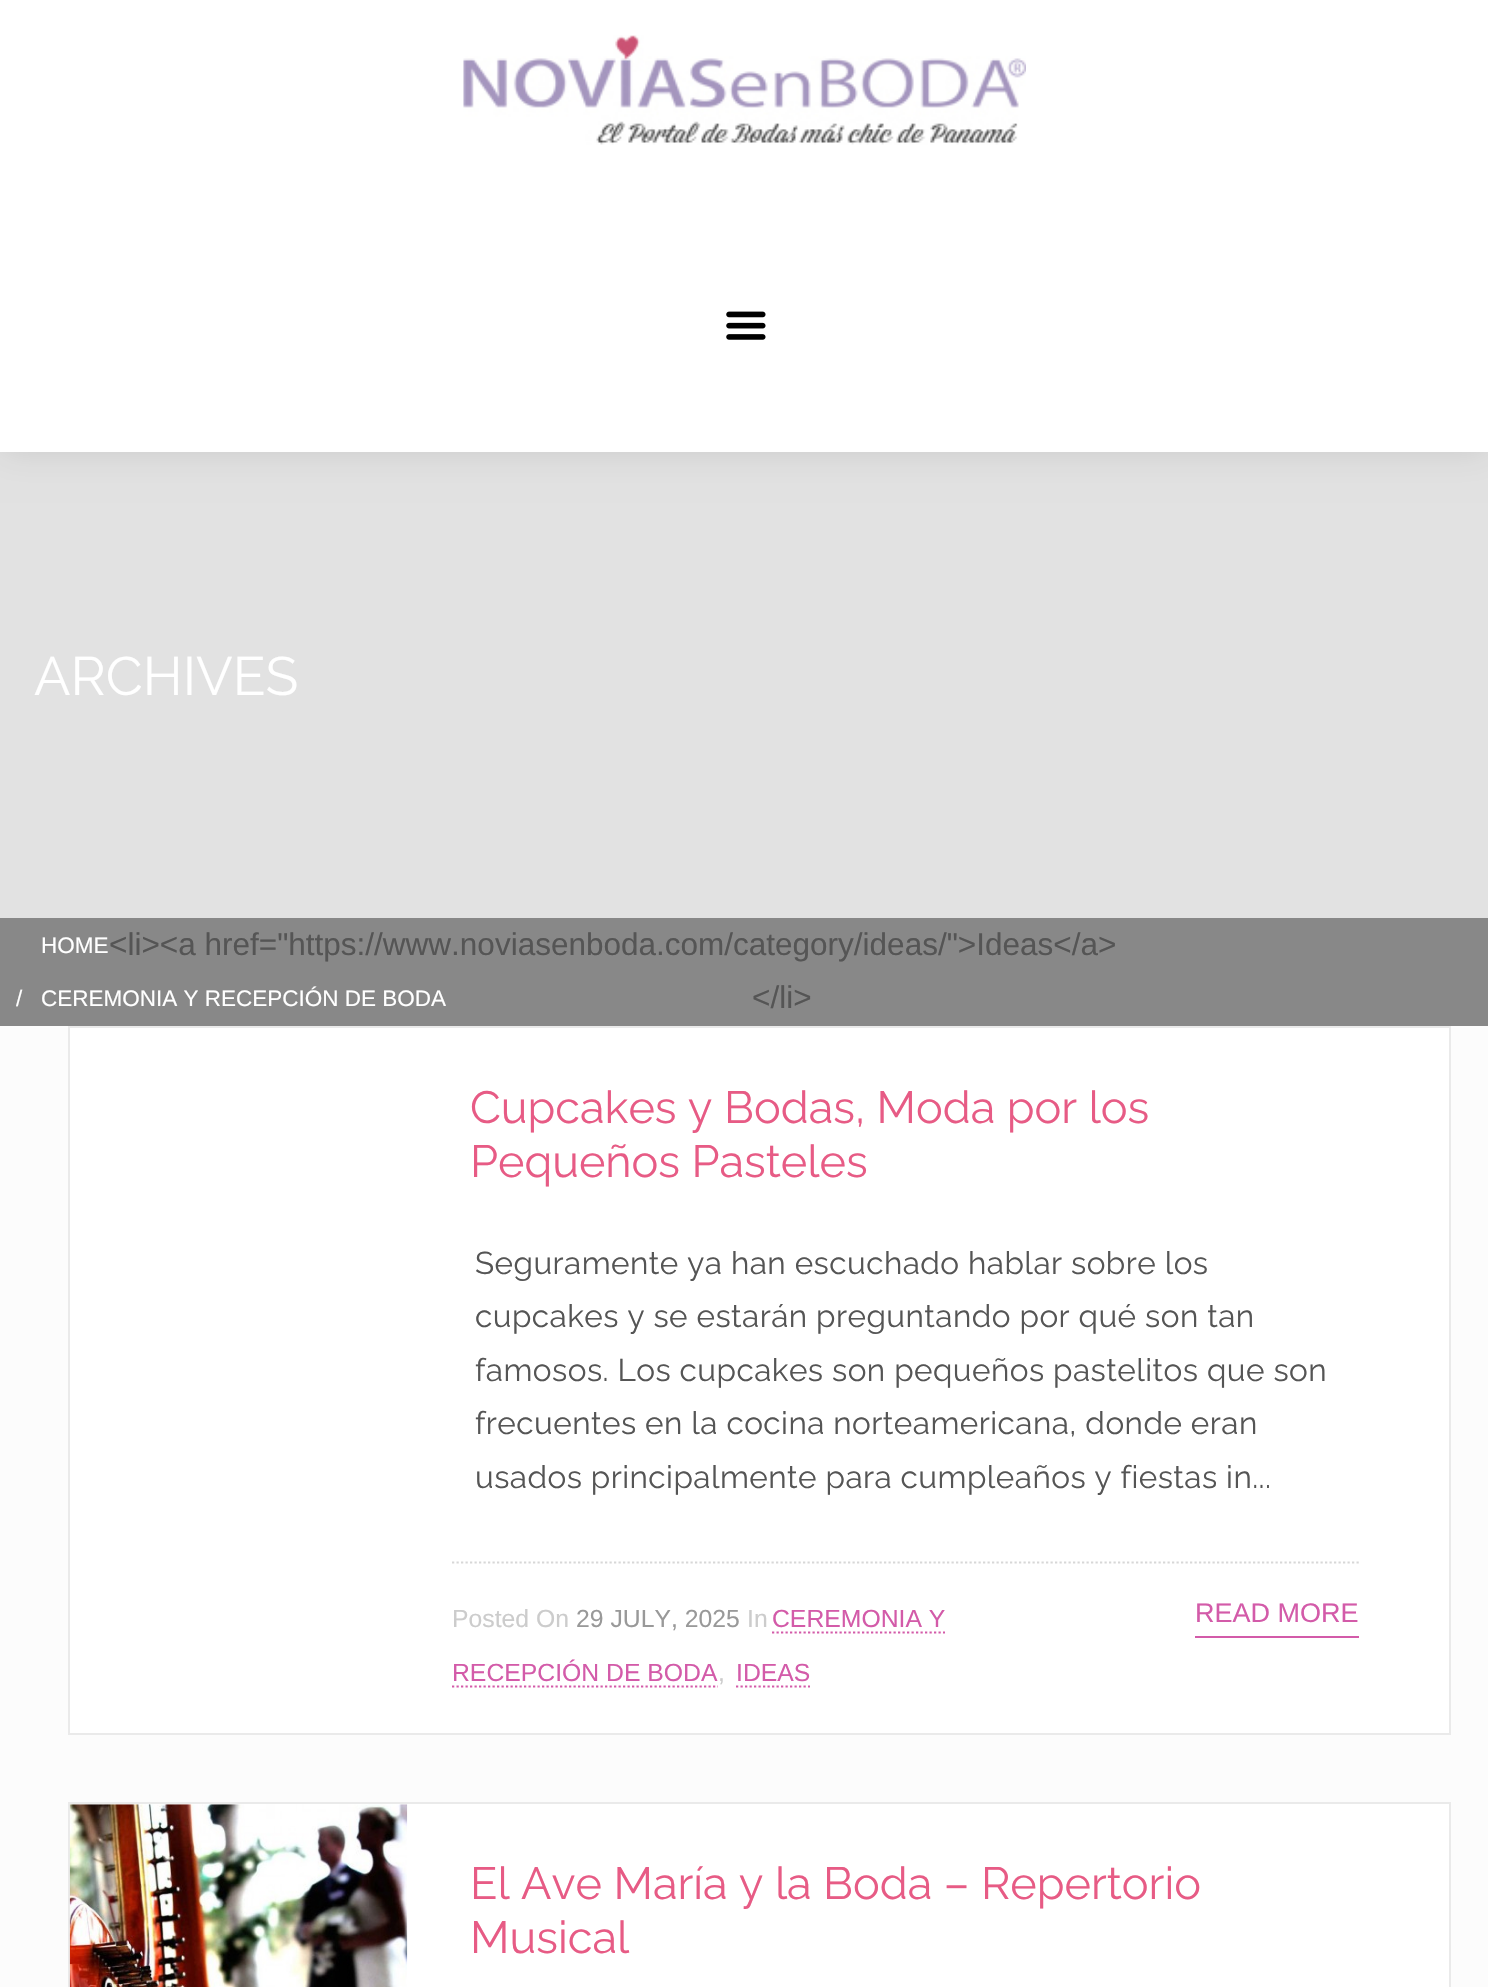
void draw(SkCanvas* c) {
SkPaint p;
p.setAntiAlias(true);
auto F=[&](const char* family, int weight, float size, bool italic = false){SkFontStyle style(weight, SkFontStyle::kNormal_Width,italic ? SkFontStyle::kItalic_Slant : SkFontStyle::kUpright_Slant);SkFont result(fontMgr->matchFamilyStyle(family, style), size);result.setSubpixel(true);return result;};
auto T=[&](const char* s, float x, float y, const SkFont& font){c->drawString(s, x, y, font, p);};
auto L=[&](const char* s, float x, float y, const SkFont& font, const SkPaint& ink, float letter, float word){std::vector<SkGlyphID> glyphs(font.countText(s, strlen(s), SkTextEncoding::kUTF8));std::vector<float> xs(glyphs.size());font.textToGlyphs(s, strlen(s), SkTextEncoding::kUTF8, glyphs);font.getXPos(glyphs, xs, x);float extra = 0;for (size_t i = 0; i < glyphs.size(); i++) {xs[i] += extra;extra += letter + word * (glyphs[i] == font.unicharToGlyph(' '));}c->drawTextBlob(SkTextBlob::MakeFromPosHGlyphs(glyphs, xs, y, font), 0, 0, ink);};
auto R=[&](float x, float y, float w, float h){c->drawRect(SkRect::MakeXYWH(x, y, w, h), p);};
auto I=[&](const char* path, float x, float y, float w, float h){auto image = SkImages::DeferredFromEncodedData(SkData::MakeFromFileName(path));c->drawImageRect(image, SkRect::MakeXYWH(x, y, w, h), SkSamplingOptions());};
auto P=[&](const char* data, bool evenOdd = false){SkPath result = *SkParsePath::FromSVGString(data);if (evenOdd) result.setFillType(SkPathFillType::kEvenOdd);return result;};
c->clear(0xfffcfcfc);
p.setColor(0xffe2e2e2);
R(0,452,1488,466);
p.setColor(0x1a000000);
p.setMaskFilter(SkMaskFilter::MakeBlur(kNormal_SkBlurStyle, 17));
c->drawRect(SkRect::MakeXYWH(0,-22,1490,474),p);
p.setMaskFilter(nullptr);
p.setColor(0xffffffff);
R(0,0,1488,452);
I("1.png",463,35,563,110);
I("2.png",726,311,40,29);
auto f1 = F("Raleway",400,54);
T("ARCHIVES",34,695,f1);
p.setColor(0xff888888);
R(0,918,1488,108);
auto f2 = F("Liberation Sans",400,22.5);
p.setColor(0xffffffff);
T("HOME",41,953,f2);
auto f3 = F("Liberation Sans",400,31.5);
p.setColor(0xff555555);
T("<li><a href=\"https://www.noviasenboda.com/category/ideas/\">Ideas</a>",109,955,f3);
p.setColor(0xffffffff);
T("/",16,1006,f2);
T("CEREMONIA Y RECEPCIÓN DE BODA",41,1006,f2);
p.setColor(0xff555555);
T("</li>",752,1008,f3);
p.setColor(0xffffffff);
c->drawRect(SkRect::MakeXYWH(69,1027,1381,707),p);
p.setStroke(true);
p.setStrokeWidth(2);
p.setColor(0xffeaeaea);
c->drawRect(SkRect::MakeXYWH(69,1027,1381,707),p);
auto f4 = F("Raleway",400,45);
p.setStroke(false);
p.setColor(0xffe75b85);
T("Cupcakes y Bodas, Moda por los",470,1123,f4);
T("Pequeños Pasteles",470,1177,f4);
auto f5 = F("Raleway",400,31.5);
p.setColor(0xff555555);
L("Seguramente ya han escuchado hablar sobre los",475,1274,f5,p,.45,0);
L("cupcakes y se estarán preguntando por qué son tan",475,1327,f5,p,.45,0);
L("famosos. Los cupcakes son pequeños pastelitos que son",475,1381,f5,p,.45,0);
L("frecuentes en la cocina norteamericana, donde eran",475,1434,f5,p,.45,0);
L("usados principalmente para cumpleaños y fiestas in...",475,1488,f5,p,.45,0);
p.setStroke(true);
p.setStrokeWidth(2.2);
p.setColor(0xffd7d7d7);
p.setPathEffect(SkDashPathEffect::Make({{2.25f,2.25f}}, 0));
c->drawPath(P("M452 1562.5h907"),p);
p.setPathEffect(nullptr);
auto f6 = F("Liberation Sans",400,24.75);
p.setStroke(false);
p.setColor(0xffcccccc);
T("Posted On",452,1627,f6);
p.setColor(0xff999999);
T("29 JULY, 2025",576,1627,f6);
p.setColor(0xffcccccc);
T("In",747,1627,f6);
p.setColor(0xffd35ba9);
T("CEREMONIA Y",772,1627,f6);
p.setStroke(true);
p.setPathEffect(SkDashPathEffect::Make({{2.25f,2.25f}}, 0));
c->drawPath(P("M772 1632.5h173"),p);
p.setPathEffect(nullptr);
p.setStroke(false);
T("RECEPCIÓN DE BODA",452,1681,f6);
p.setStroke(true);
p.setPathEffect(SkDashPathEffect::Make({{2.25f,2.25f}}, 0));
c->drawPath(P("M452 1686.5h266"),p);
p.setPathEffect(nullptr);
p.setStroke(false);
p.setColor(0xffcccccc);
T(",",718,1681,f6);
p.setColor(0xffd35ba9);
T("IDEAS",736,1681,f6);
p.setStroke(true);
p.setPathEffect(SkDashPathEffect::Make({{2.25f,2.25f}}, 0));
c->drawPath(P("M736 1686.5h74"),p);
p.setPathEffect(nullptr);
p.setStroke(false);
R(1195,1636,164,2);
auto f7 = F("Liberation Sans",400,27);
T("READ MORE",1195,1622,f7);
p.setColor(0xffffffff);
c->drawRect(SkRect::MakeXYWH(69,1803,1381,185),p);
p.setStroke(true);
p.setStrokeWidth(2);
p.setColor(0xffeaeaea);
c->drawRect(SkRect::MakeXYWH(69,1803,1381,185),p);
I("3.png",69,1804,339,183);
p.setStroke(false);
p.setColor(0xffe75b85);
T("El Ave María y la Boda – Repertorio",470,1899,f4);
T("Musical",470,1953,f4);
}
